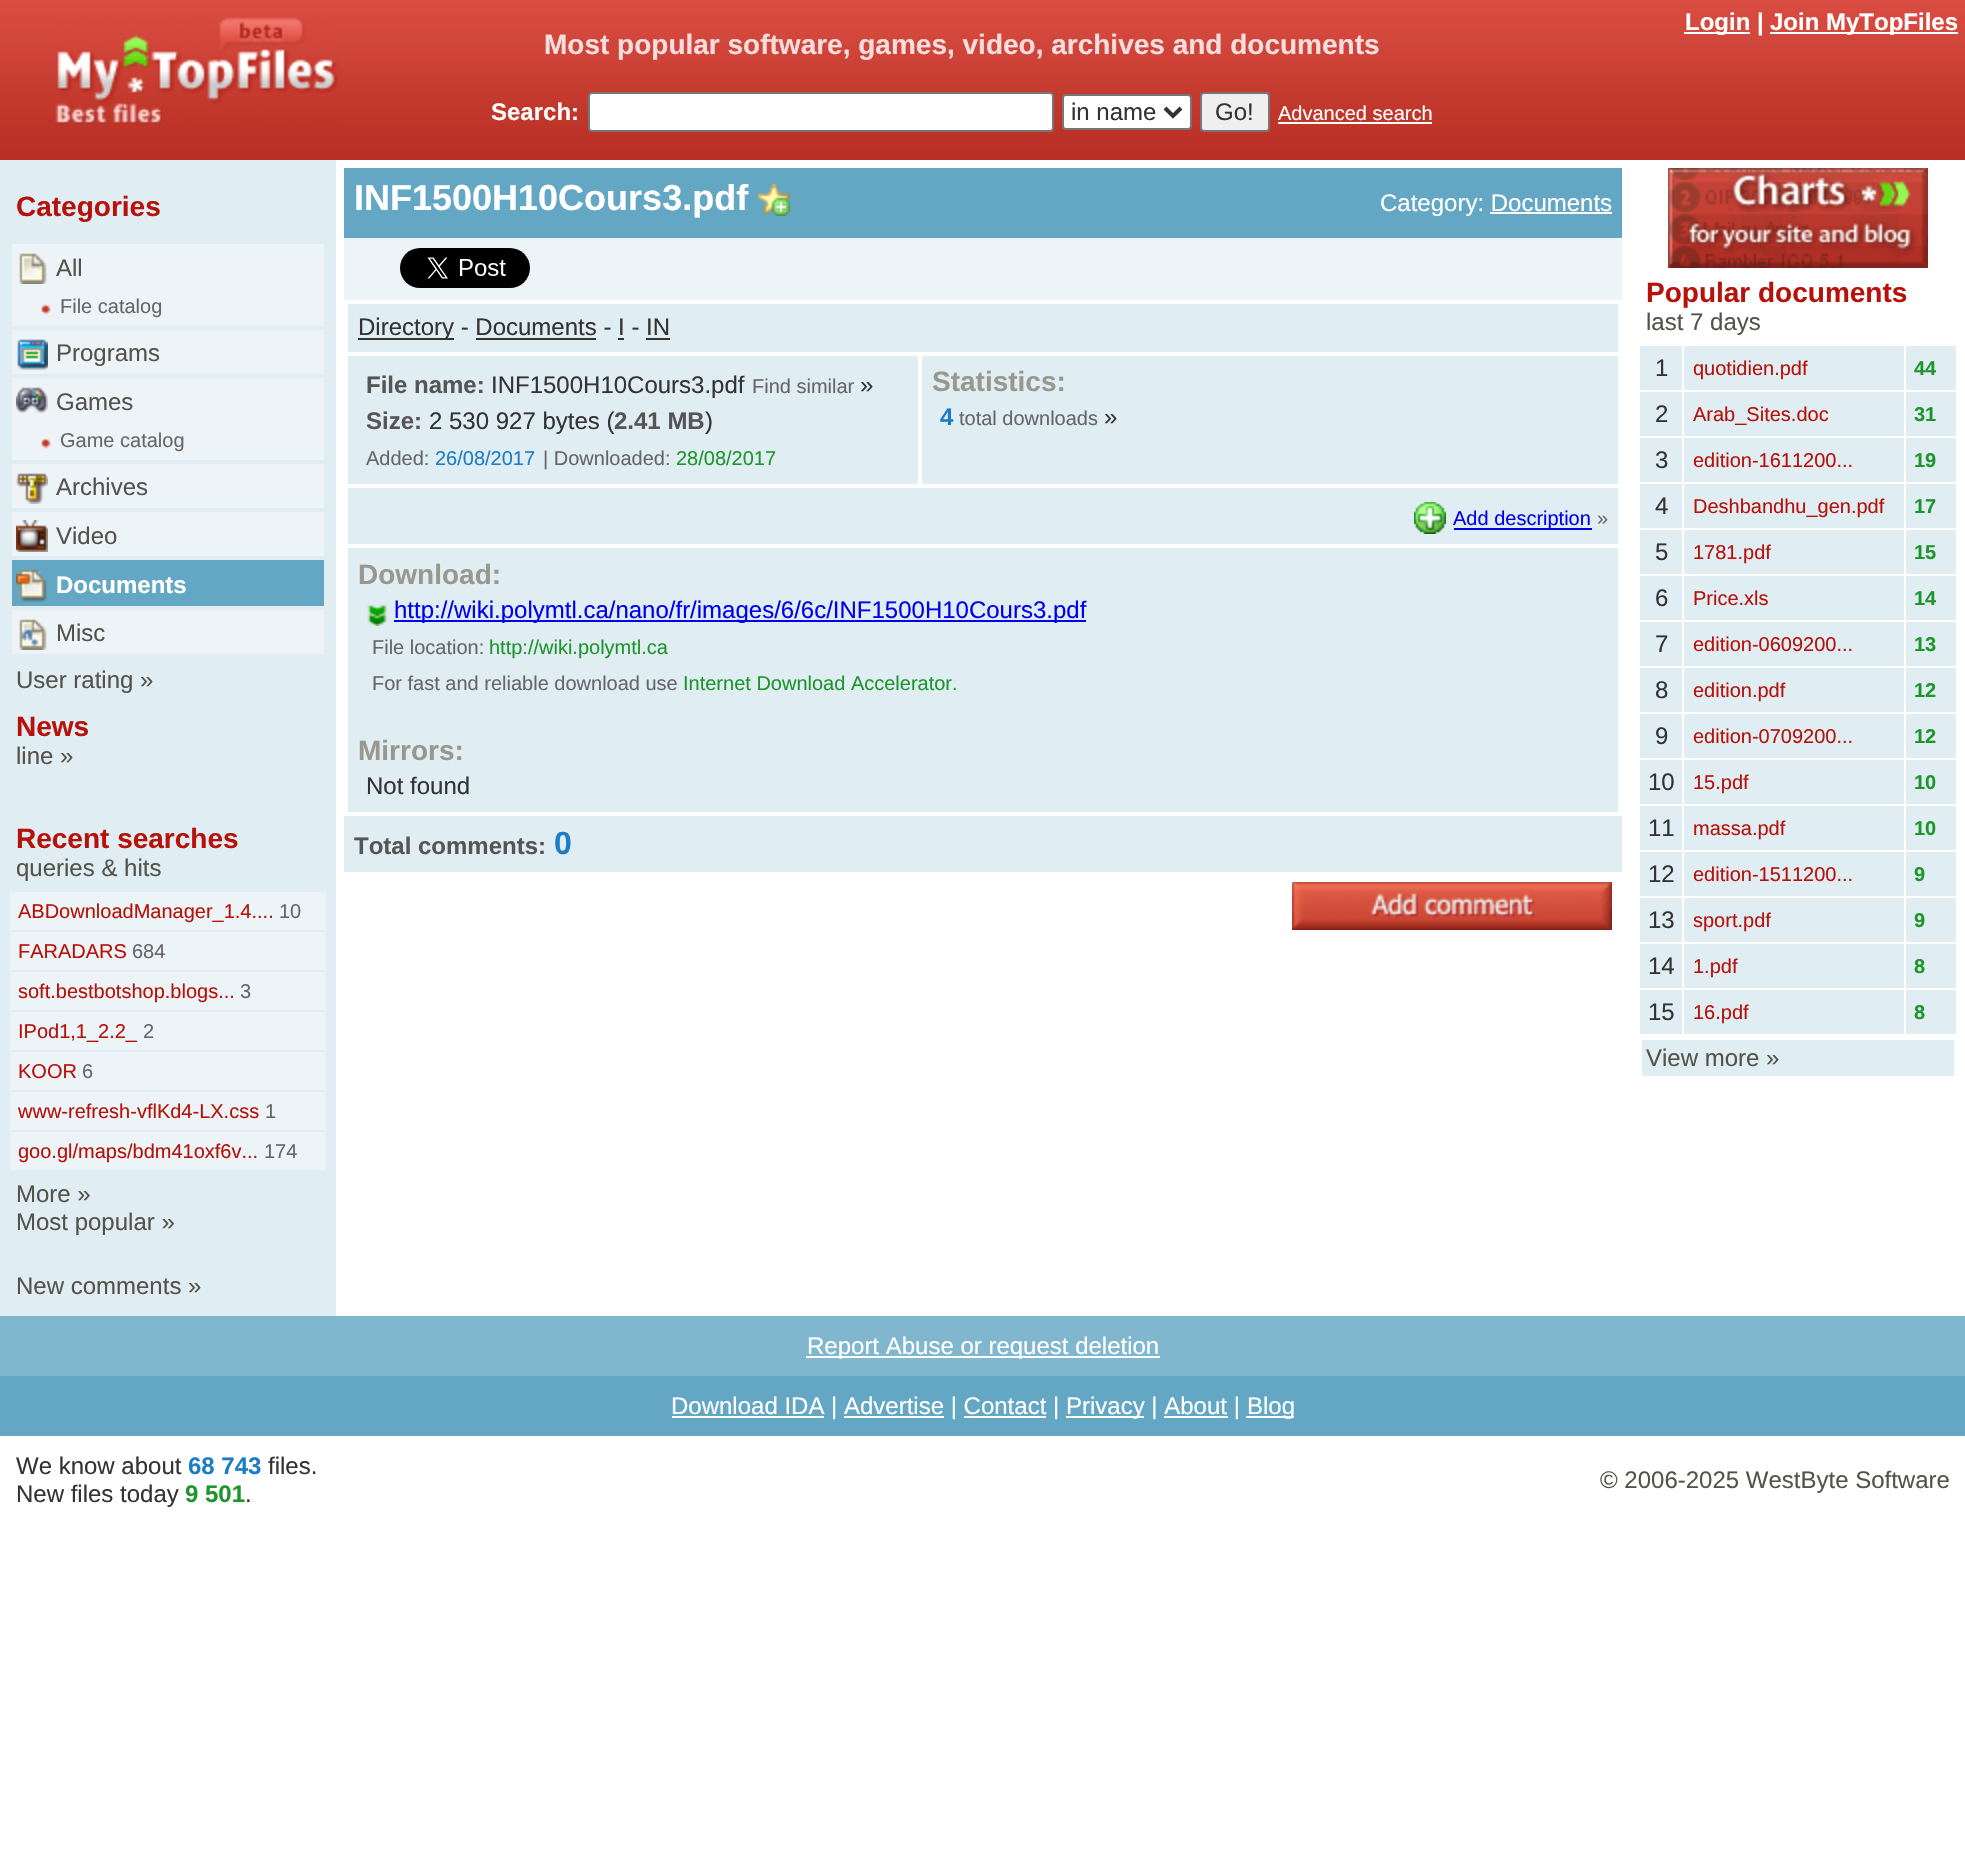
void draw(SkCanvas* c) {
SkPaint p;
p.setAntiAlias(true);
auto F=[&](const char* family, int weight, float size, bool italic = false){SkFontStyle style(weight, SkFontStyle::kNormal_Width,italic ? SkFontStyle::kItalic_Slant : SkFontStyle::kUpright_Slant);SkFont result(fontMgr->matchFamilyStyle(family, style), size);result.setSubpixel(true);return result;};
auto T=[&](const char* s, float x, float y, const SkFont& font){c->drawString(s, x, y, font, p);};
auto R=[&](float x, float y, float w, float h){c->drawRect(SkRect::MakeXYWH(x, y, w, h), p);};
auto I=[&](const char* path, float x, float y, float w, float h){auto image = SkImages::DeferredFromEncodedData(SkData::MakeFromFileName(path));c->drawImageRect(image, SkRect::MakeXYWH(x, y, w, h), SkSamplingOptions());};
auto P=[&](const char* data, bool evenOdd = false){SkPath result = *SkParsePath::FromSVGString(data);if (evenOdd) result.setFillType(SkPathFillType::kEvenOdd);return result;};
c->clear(0xffffffff);
I("1.png",0,0,360,160);
I("2.png",55,17,284,108);
I("3.png",360,0,1605,160);
p.setColor(0xffffffff);
R(1684,32,66,2);
auto f1 = F("Liberation Sans",700,24);
T("Login |",1685,30,f1);
R(1770,32,188,2);
T("Join MyTopFiles",1770,30,f1);
auto f2 = F("Liberation Sans",700,28);
p.setColor(0xfff7dddd);
T("Most popular software, games, video, archives and documents",544,54,f2);
p.setColor(0xffffffff);
T("Search:",491,120,f1);
c->drawRoundRect(SkRect::MakeXYWH(589,93,464,38),3,3,p);
p.setStroke(true);
p.setStrokeWidth(2);
p.setColor(0xff767676);
c->drawRoundRect(SkRect::MakeXYWH(589,93,464,38),3,3,p);
p.setStroke(false);
p.setColor(0xffffffff);
c->drawRoundRect(SkRect::MakeXYWH(1063,95,128,34),3,3,p);
p.setStroke(true);
p.setColor(0xff767676);
c->drawRoundRect(SkRect::MakeXYWH(1063,95,128,34),3,3,p);
p.setStrokeWidth(4);
p.setColor(0xff333333);
c->drawPath(P("M1165 108l8 8l8-8"),p);
auto f3 = F("Liberation Sans",400,24);
p.setStroke(false);
T("in name",1071,120,f3);
p.setColor(0xffefefef);
c->drawRoundRect(SkRect::MakeXYWH(1201,93,68,38),3,3,p);
p.setStroke(true);
p.setStrokeWidth(2);
p.setColor(0xff767676);
c->drawRoundRect(SkRect::MakeXYWH(1201,93,68,38),3,3,p);
p.setStroke(false);
p.setColor(0xff333333);
T("Go!",1215,120,f3);
auto f4 = F("Liberation Sans",400,20);
p.setColor(0xffffffff);
T("Advanced search",1278,120,f4);
R(1278,122,154,2);
p.setColor(0xffe0edf3);
R(0,160,336,1156);
p.setColor(0xffb71109);
T("Categories",16,216,f2);
p.setColor(0xffedf4f8);
R(12,244,312,82);
I("4.png",19,253,28,31);
p.setColor(0xff54534b);
T("All",56,276,f3);
I("5.png",41,303,10,12);
p.setColor(0xff666666);
T("File catalog",60,313,f4);
p.setColor(0xffedf4f8);
R(12,330,312,44);
I("6.png",17,339,31,31);
p.setColor(0xff54534b);
T("Programs",56,361,f3);
p.setColor(0xffedf4f8);
R(12,378,312,82);
I("7.png",16,386,32,28);
p.setColor(0xff54534b);
T("Games",56,410,f3);
I("5.png",41,437,10,12);
p.setColor(0xff666666);
T("Game catalog",60,447,f4);
p.setColor(0xffedf4f8);
R(12,464,312,44);
I("8.png",16,473,32,31);
p.setColor(0xff54534b);
T("Archives",56,495,f3);
p.setColor(0xffedf4f8);
R(12,512,312,44);
I("9.png",16,520,32,32);
p.setColor(0xff54534b);
T("Video",56,544,f3);
p.setColor(0xff64a7c4);
R(12,560,312,46);
I("10.png",16,570,31,32);
p.setColor(0xffffffff);
T("Documents",56,593,f1);
p.setColor(0xffedf4f8);
R(12,610,312,44);
I("11.png",19,619,28,31);
p.setColor(0xff54534b);
T("Misc",56,641,f3);
T("User rating »",16,688,f3);
p.setColor(0xffb71109);
T("News",16,736,f2);
p.setColor(0xff54534b);
T("line »",16,764,f3);
p.setColor(0xffb71109);
T("Recent searches",16,848,f2);
p.setColor(0xff54534b);
T("queries & hits",16,876,f3);
p.setColor(0xffedf4f8);
R(10,892,316,38);
p.setColor(0xffb71109);
T("ABDownloadManager_1.4....",18,918,f4);
p.setColor(0xff666666);
T("10",279,918,f4);
p.setColor(0xffedf4f8);
R(10,932,316,38);
p.setColor(0xffb71109);
T("FARADARS",18,958,f4);
p.setColor(0xff666666);
T("684",132,958,f4);
p.setColor(0xffedf4f8);
R(10,972,316,38);
p.setColor(0xffb71109);
T("soft.bestbotshop.blogs...",18,998,f4);
p.setColor(0xff666666);
T("3",240,998,f4);
p.setColor(0xffedf4f8);
R(10,1012,316,38);
p.setColor(0xffb71109);
T("IPod1,1_2.2_",18,1038,f4);
p.setColor(0xff666666);
T("2",143,1038,f4);
p.setColor(0xffedf4f8);
R(10,1052,316,38);
p.setColor(0xffb71109);
T("KOOR",18,1078,f4);
p.setColor(0xff666666);
T("6",82,1078,f4);
p.setColor(0xffedf4f8);
R(10,1092,316,38);
p.setColor(0xffb71109);
T("www-refresh-vflKd4-LX.css",18,1118,f4);
p.setColor(0xff666666);
T("1",265,1118,f4);
p.setColor(0xffedf4f8);
R(10,1132,316,38);
p.setColor(0xffb71109);
T("goo.gl/maps/bdm41oxf6v...",18,1158,f4);
p.setColor(0xff666666);
T("174",264,1158,f4);
p.setColor(0xff54534b);
T("More »",16,1202,f3);
T("Most popular »",16,1230,f3);
T("New comments »",16,1294,f3);
p.setColor(0xff64a7c4);
R(344,168,1278,70);
auto f5 = F("Liberation Sans",700,36);
p.setColor(0xffffffff);
T("INF1500H10Cours3.pdf",354,210,f5);
I("12.png",758,184,32,32);
T("Category: Documents",1380,211,f3);
R(1490,212,122,2);
p.setColor(0xffedf4f8);
R(344,238,1278,62);
I("13.png",400,248,130,40);
p.setColor(0xffe0edf3);
R(348,304,1270,48);
p.setColor(0xff333333);
R(358,338,96,2);
T("Directory - Documents - I - IN",358,335,f3);
R(476,338,120,2);
R(618,338,6,2);
R(646,338,24,2);
p.setColor(0xffe0edf3);
R(348,356,570,128);
p.setColor(0xff555555);
T("File name:",366,393,f1);
p.setColor(0xff333333);
T("INF1500H10Cours3.pdf",491,393,f3);
p.setColor(0xff666666);
T("Find similar",752,393,f4);
p.setColor(0xff333333);
T("»",860,393,f3);
p.setColor(0xff555555);
T("Size:",366,429,f1);
p.setColor(0xff333333);
T("2 530 927 bytes (",429,429,f3);
p.setColor(0xff555555);
T("2.41 MB",614,429,f1);
p.setColor(0xff333333);
T(")",705,429,f3);
p.setColor(0xff666666);
T("Added:",366,465,f4);
p.setColor(0xff1c7dc6);
T("26/08/2017",435,465,f4);
p.setColor(0xff666666);
T("| Downloaded:",543,465,f4);
p.setColor(0xff1c952b);
T("28/08/2017",676,465,f4);
p.setColor(0xffe0edf3);
R(922,356,696,128);
p.setColor(0xff99978e);
T("Statistics:",932,391,f2);
p.setColor(0xff1c7dc6);
T("4",940,425,f1);
p.setColor(0xff666666);
T("total downloads",959,425,f4);
p.setColor(0xff333333);
T("»",1104,425,f3);
p.setColor(0xffe0edf3);
R(348,488,1270,56);
I("14.png",1414,502,32,32);
p.setColor(0xff0000ee);
R(1454,528,138,2);
T("Add description",1453,525,f4);
p.setColor(0xff666666);
T("»",1597,525,f4);
p.setColor(0xffe0edf3);
R(348,548,1270,264);
p.setColor(0xff99978e);
T("Download:",358,584,f2);
I("15.png",367,603,20,23);
p.setColor(0xff0000ee);
R(394,620,692,2);
T("http://wiki.polymtl.ca/nano/fr/images/6/6c/INF1500H10Cours3.pdf",394,618,f3);
p.setColor(0xff666666);
T("File location:",372,654,f4);
p.setColor(0xff1c952b);
T("http://wiki.polymtl.ca",489,654,f4);
p.setColor(0xff666666);
T("For fast and reliable download use",372,690,f4);
p.setColor(0xff1c952b);
T("Internet Download Accelerator.",683,690,f4);
p.setColor(0xff99978e);
T("Mirrors:",358,760,f2);
p.setColor(0xff333333);
T("Not found",366,794,f3);
p.setColor(0xffe0edf3);
R(344,816,1278,56);
p.setColor(0xff555555);
T("Total comments:",354,854,f1);
auto f6 = F("Liberation Sans",700,32);
p.setColor(0xff1c7dc6);
T("0",554,854,f6);
I("16.png",1292,882,320,48);
I("17.png",1668,168,260,100);
p.setColor(0xffb71109);
T("Popular documents",1646,302,f2);
p.setColor(0xff54534b);
T("last 7 days",1646,330,f3);
p.setColor(0xffe0edf3);
R(1640,346,42,44);
p.setColor(0xff333333);
T("1",1655,376,f3);
p.setColor(0xffe0edf3);
R(1684,346,220,44);
p.setColor(0xffb71109);
T("quotidien.pdf",1693,375,f4);
p.setColor(0xffe0edf3);
R(1906,346,50,44);
auto f7 = F("Liberation Sans",700,20);
p.setColor(0xff1c952b);
T("44",1914,375,f7);
p.setColor(0xffe0edf3);
R(1640,392,42,44);
p.setColor(0xff333333);
T("2",1655,422,f3);
p.setColor(0xffe0edf3);
R(1684,392,220,44);
p.setColor(0xffb71109);
T("Arab_Sites.doc",1693,421,f4);
p.setColor(0xffe0edf3);
R(1906,392,50,44);
p.setColor(0xff1c952b);
T("31",1914,421,f7);
p.setColor(0xffe0edf3);
R(1640,438,42,44);
p.setColor(0xff333333);
T("3",1655,468,f3);
p.setColor(0xffe0edf3);
R(1684,438,220,44);
p.setColor(0xffb71109);
T("edition-1611200...",1693,467,f4);
p.setColor(0xffe0edf3);
R(1906,438,50,44);
p.setColor(0xff1c952b);
T("19",1914,467,f7);
p.setColor(0xffe0edf3);
R(1640,484,42,44);
p.setColor(0xff333333);
T("4",1655,514,f3);
p.setColor(0xffe0edf3);
R(1684,484,220,44);
p.setColor(0xffb71109);
T("Deshbandhu_gen.pdf",1693,513,f4);
p.setColor(0xffe0edf3);
R(1906,484,50,44);
p.setColor(0xff1c952b);
T("17",1914,513,f7);
p.setColor(0xffe0edf3);
R(1640,530,42,44);
p.setColor(0xff333333);
T("5",1655,560,f3);
p.setColor(0xffe0edf3);
R(1684,530,220,44);
p.setColor(0xffb71109);
T("1781.pdf",1693,559,f4);
p.setColor(0xffe0edf3);
R(1906,530,50,44);
p.setColor(0xff1c952b);
T("15",1914,559,f7);
p.setColor(0xffe0edf3);
R(1640,576,42,44);
p.setColor(0xff333333);
T("6",1655,606,f3);
p.setColor(0xffe0edf3);
R(1684,576,220,44);
p.setColor(0xffb71109);
T("Price.xls",1693,605,f4);
p.setColor(0xffe0edf3);
R(1906,576,50,44);
p.setColor(0xff1c952b);
T("14",1914,605,f7);
p.setColor(0xffe0edf3);
R(1640,622,42,44);
p.setColor(0xff333333);
T("7",1655,652,f3);
p.setColor(0xffe0edf3);
R(1684,622,220,44);
p.setColor(0xffb71109);
T("edition-0609200...",1693,651,f4);
p.setColor(0xffe0edf3);
R(1906,622,50,44);
p.setColor(0xff1c952b);
T("13",1914,651,f7);
p.setColor(0xffe0edf3);
R(1640,668,42,44);
p.setColor(0xff333333);
T("8",1655,698,f3);
p.setColor(0xffe0edf3);
R(1684,668,220,44);
p.setColor(0xffb71109);
T("edition.pdf",1693,697,f4);
p.setColor(0xffe0edf3);
R(1906,668,50,44);
p.setColor(0xff1c952b);
T("12",1914,697,f7);
p.setColor(0xffe0edf3);
R(1640,714,42,44);
p.setColor(0xff333333);
T("9",1655,744,f3);
p.setColor(0xffe0edf3);
R(1684,714,220,44);
p.setColor(0xffb71109);
T("edition-0709200...",1693,743,f4);
p.setColor(0xffe0edf3);
R(1906,714,50,44);
p.setColor(0xff1c952b);
T("12",1914,743,f7);
p.setColor(0xffe0edf3);
R(1640,760,42,44);
p.setColor(0xff333333);
T("10",1648,790,f3);
p.setColor(0xffe0edf3);
R(1684,760,220,44);
p.setColor(0xffb71109);
T("15.pdf",1693,789,f4);
p.setColor(0xffe0edf3);
R(1906,760,50,44);
p.setColor(0xff1c952b);
T("10",1914,789,f7);
p.setColor(0xffe0edf3);
R(1640,806,42,44);
p.setColor(0xff333333);
T("11",1648,836,f3);
p.setColor(0xffe0edf3);
R(1684,806,220,44);
p.setColor(0xffb71109);
T("massa.pdf",1693,835,f4);
p.setColor(0xffe0edf3);
R(1906,806,50,44);
p.setColor(0xff1c952b);
T("10",1914,835,f7);
p.setColor(0xffe0edf3);
R(1640,852,42,44);
p.setColor(0xff333333);
T("12",1648,882,f3);
p.setColor(0xffe0edf3);
R(1684,852,220,44);
p.setColor(0xffb71109);
T("edition-1511200...",1693,881,f4);
p.setColor(0xffe0edf3);
R(1906,852,50,44);
p.setColor(0xff1c952b);
T("9",1914,881,f7);
p.setColor(0xffe0edf3);
R(1640,898,42,44);
p.setColor(0xff333333);
T("13",1648,928,f3);
p.setColor(0xffe0edf3);
R(1684,898,220,44);
p.setColor(0xffb71109);
T("sport.pdf",1693,927,f4);
p.setColor(0xffe0edf3);
R(1906,898,50,44);
p.setColor(0xff1c952b);
T("9",1914,927,f7);
p.setColor(0xffe0edf3);
R(1640,944,42,44);
p.setColor(0xff333333);
T("14",1648,974,f3);
p.setColor(0xffe0edf3);
R(1684,944,220,44);
p.setColor(0xffb71109);
T("1.pdf",1693,973,f4);
p.setColor(0xffe0edf3);
R(1906,944,50,44);
p.setColor(0xff1c952b);
T("8",1914,973,f7);
p.setColor(0xffe0edf3);
R(1640,990,42,44);
p.setColor(0xff333333);
T("15",1648,1020,f3);
p.setColor(0xffe0edf3);
R(1684,990,220,44);
p.setColor(0xffb71109);
T("16.pdf",1693,1019,f4);
p.setColor(0xffe0edf3);
R(1906,990,50,44);
p.setColor(0xff1c952b);
T("8",1914,1019,f7);
p.setColor(0xffe0edf3);
R(1642,1040,312,36);
p.setColor(0xff54534b);
T("View more »",1646,1066,f3);
p.setColor(0xff80b7ce);
R(0,1316,1965,60);
p.setColor(0xffffffff);
R(806,1356,354,2);
T("Report Abuse or request deletion",807,1354,f3);
p.setColor(0xff64a7c4);
R(0,1376,1965,60);
p.setColor(0xffffffff);
R(672,1416,152,2);
T("Download IDA | Advertise | Contact |",671,1414,f3);
R(1066,1416,78,2);
T("Privacy | About |",1066,1414,f3);
R(844,1416,100,2);
R(964,1416,82,2);
R(1164,1416,64,2);
R(1246,1416,48,2);
T("Blog",1247,1414,f3);
p.setColor(0xff333333);
T("We know about",16,1474,f3);
p.setColor(0xff1c7dc6);
T("68 743",188,1474,f1);
p.setColor(0xff333333);
T("files.",268,1474,f3);
T("New files today",16,1502,f3);
p.setColor(0xff1c952b);
T("9 501",185,1502,f1);
p.setColor(0xff333333);
T(".",245,1502,f3);
p.setColor(0xff54534b);
T("© 2006-2025 WestByte Software",1600,1488,f3);
}
